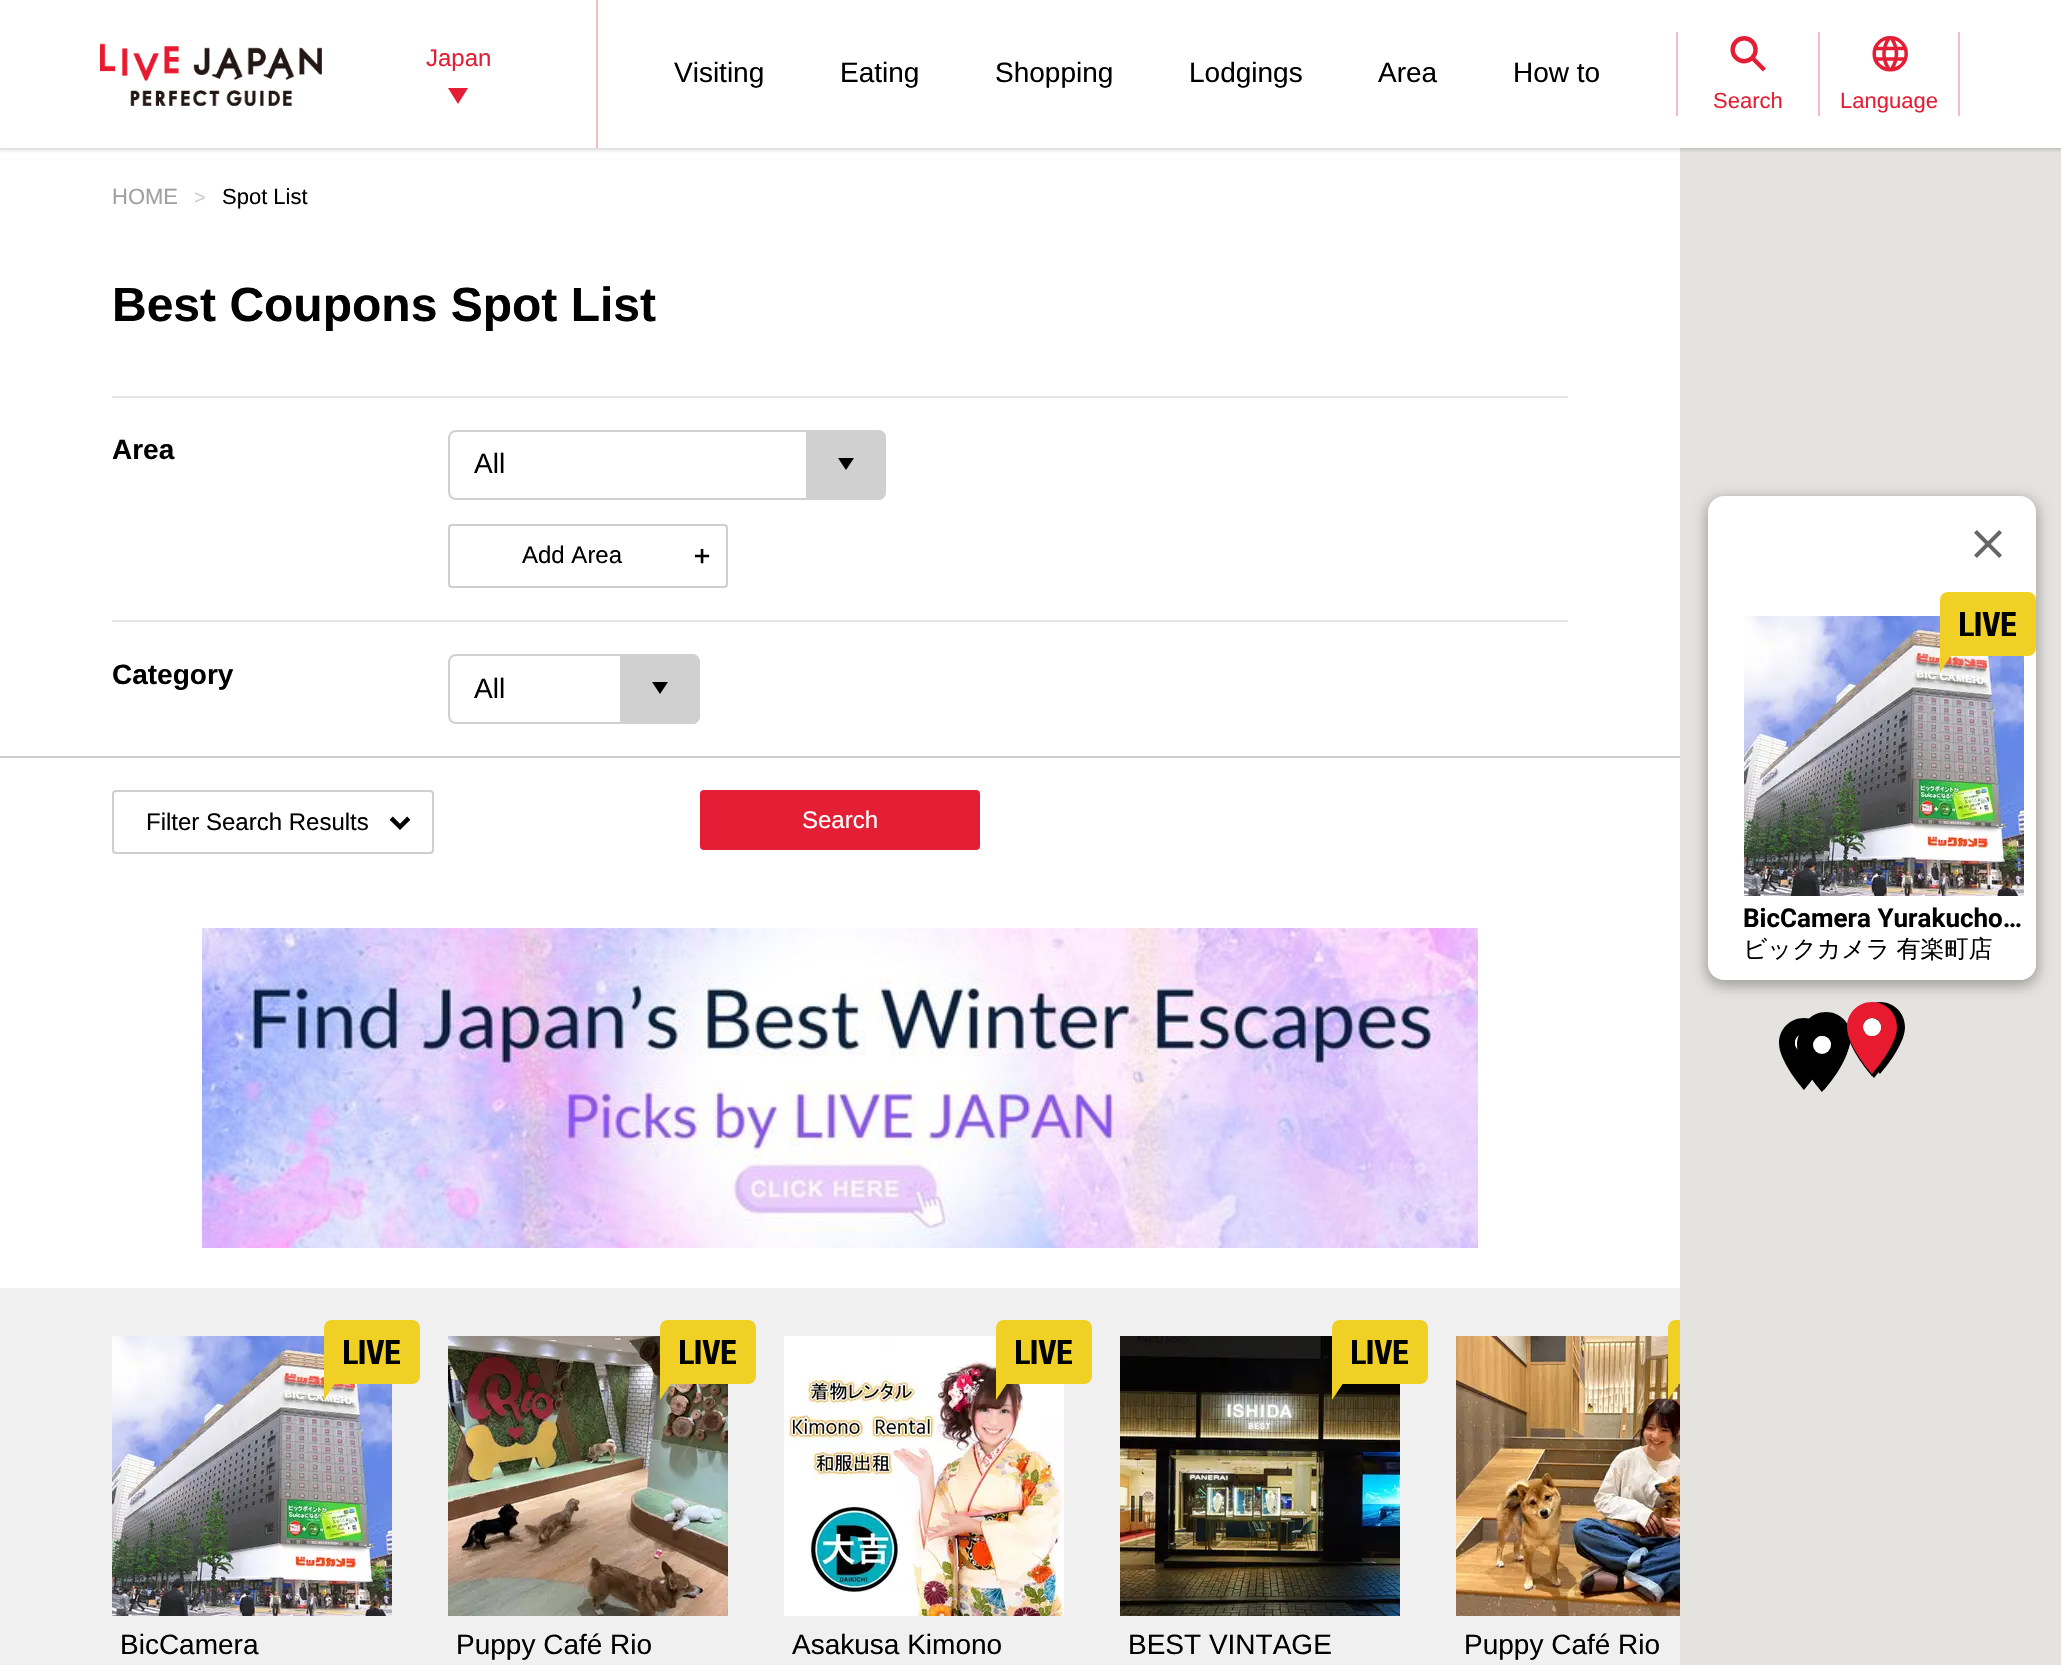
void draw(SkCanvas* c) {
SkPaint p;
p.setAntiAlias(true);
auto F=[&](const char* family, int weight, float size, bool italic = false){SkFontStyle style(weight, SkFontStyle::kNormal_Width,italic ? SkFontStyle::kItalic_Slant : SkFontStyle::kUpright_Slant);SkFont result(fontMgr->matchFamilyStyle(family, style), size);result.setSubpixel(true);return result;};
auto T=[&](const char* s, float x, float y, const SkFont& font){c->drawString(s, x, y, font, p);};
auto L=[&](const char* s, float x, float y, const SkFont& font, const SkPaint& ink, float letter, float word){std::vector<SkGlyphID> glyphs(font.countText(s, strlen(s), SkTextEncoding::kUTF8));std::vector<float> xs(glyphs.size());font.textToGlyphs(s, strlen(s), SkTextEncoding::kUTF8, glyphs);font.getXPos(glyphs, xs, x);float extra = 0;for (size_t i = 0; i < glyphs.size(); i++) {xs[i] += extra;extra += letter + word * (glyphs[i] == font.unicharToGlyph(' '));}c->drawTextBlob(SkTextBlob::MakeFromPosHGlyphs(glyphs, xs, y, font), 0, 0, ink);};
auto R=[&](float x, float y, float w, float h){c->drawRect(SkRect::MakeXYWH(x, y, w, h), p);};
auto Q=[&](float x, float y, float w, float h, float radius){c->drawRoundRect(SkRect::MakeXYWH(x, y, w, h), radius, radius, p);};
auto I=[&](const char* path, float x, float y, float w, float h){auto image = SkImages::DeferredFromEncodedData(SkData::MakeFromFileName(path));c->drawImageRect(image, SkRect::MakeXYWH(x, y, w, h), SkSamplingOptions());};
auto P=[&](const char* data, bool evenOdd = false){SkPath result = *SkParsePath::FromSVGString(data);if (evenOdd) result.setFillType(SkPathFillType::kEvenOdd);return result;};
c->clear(0xffffffff);
p.setColor(0xffe5e3df);
R(1680,148,381,1517);
c->save();
c->clipRect(SkRect::MakeXYWH(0,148,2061,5));
p.setColor(0x33323232);
p.setMaskFilter(SkMaskFilter::MakeBlur(kNormal_SkBlurStyle, 2));
c->drawRect(SkRect::MakeXYWH(-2,-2,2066,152),p);
p.setMaskFilter(nullptr);
c->restore();
I("1.png",100,43,222,63);
auto f1 = F("Liberation Sans",400,24);
p.setColor(0xffe41f35);
T("Japan",426,66,f1);
c->drawPath(P("M448 88h20l-10 16z"),p);
p.setColor(0xfff7bbc2);
R(596,0,2,148);
auto f2 = F("Liberation Sans",400,28);
p.setColor(0xff000000);
T("Visiting",674,82,f2);
T("Eating",840,82,f2);
T("Shopping",995,82,f2);
T("Lodgings",1189,82,f2);
T("Area",1378,82,f2);
T("How to",1513,82,f2);
p.setColor(0xfff7bbc2);
R(1676,32,2,84);
I("2.png",1730,36,36,36);
auto f3 = F("Liberation Sans",400,22);
p.setColor(0xffe41f35);
T("Search",1713,108,f3);
p.setColor(0xfff7bbc2);
R(1958,32,2,84);
R(1818,32,2,84);
I("3.png",1872,36,36,36);
p.setColor(0xffe41f35);
T("Language",1840,108,f3);
p.setColor(0xffa0a0a0);
T("HOME",112,204,f3);
auto f4 = F("Liberation Sans",400,20);
p.setColor(0xffcccccc);
T(">",194,204,f4);
p.setColor(0xff000000);
T("Spot List",222,204,f3);
auto f5 = F("Liberation Sans",700,48);
T("Best Coupons Spot List",112,321,f5);
p.setColor(0xffe5e5e5);
R(112,396,1456,2);
R(112,620,1456,2);
auto f6 = F("Liberation Sans",700,28);
p.setColor(0xff000000);
T("Area",112,459,f6);
p.setColor(0xffd0d0d0);
c->drawPath(P("M806 430h72c4.5 0 8 3.5 8 8v54c0 4.5-3.5 8-8 8h-72z"),p);
p.setColor(0xff000000);
c->drawPath(P("M838 458h16l-8 12z"),p);
p.setStroke(true);
p.setStrokeWidth(2);
p.setColor(0xffd0d0d0);
c->drawRoundRect(SkRect::MakeXYWH(449,431,436,68),7,7,p);
p.setStroke(false);
p.setColor(0xff000000);
T("All",474,473,f2);
p.setStroke(true);
p.setColor(0xffcfcfcf);
c->drawRoundRect(SkRect::MakeXYWH(449,525,278,62),3,3,p);
p.setStroke(false);
p.setColor(0xff000000);
T("Add Area",522,563,f1);
I("4.png",694,549,16,15);
T("Category",112,684,f6);
p.setColor(0xffd0d0d0);
c->drawPath(P("M620 654h72c4.5 0 8 3.5 8 8v54c0 4.5-3.5 8-8 8h-72z"),p);
p.setColor(0xff000000);
c->drawPath(P("M652 682h16l-8 12z"),p);
p.setStroke(true);
p.setColor(0xffd0d0d0);
c->drawRoundRect(SkRect::MakeXYWH(449,655,250,68),7,7,p);
p.setStroke(false);
p.setColor(0xff000000);
T("All",474,698,f2);
p.setColor(0xffcfcfcf);
R(0,756,1680,2);
p.setStroke(true);
c->drawRoundRect(SkRect::MakeXYWH(113,791,320,62),3,3,p);
p.setStroke(false);
p.setColor(0xff000000);
T("Filter Search Results",146,830,f1);
I("5.png",389,816,22,14);
p.setColor(0xffe41f35);
Q(700,790,280,60,4);
p.setColor(0xffffffff);
T("Search",802,828,f1);
I("6.png",202,928,1276,320);
p.setColor(0xfff0f0f0);
R(0,1288,1680,377);
I("8.png",112,1336,280,280);
p.setColor(0xfff0d025);
Q(324,1320,96,64,8);
I("7.png",344,1340,56,24);
c->drawPath(P("M324 1400v-24h16z"),p);
p.setColor(0xff000000);
T("BicCamera",120,1654,f2);
I("9.png",448,1336,280,280);
p.setColor(0xfff0d025);
Q(660,1320,96,64,8);
I("7.png",680,1340,56,24);
c->drawPath(P("M660 1400v-24h16z"),p);
p.setColor(0xff000000);
T("Puppy Café Rio",456,1654,f2);
I("10.png",784,1336,280,280);
p.setColor(0xfff0d025);
Q(996,1320,96,64,8);
I("7.png",1016,1340,56,24);
c->drawPath(P("M996 1400v-24h16z"),p);
p.setColor(0xff000000);
T("Asakusa Kimono",792,1654,f2);
I("11.png",1120,1336,280,280);
p.setColor(0xfff0d025);
Q(1332,1320,96,64,8);
I("7.png",1352,1340,56,24);
c->drawPath(P("M1332 1400v-24h16z"),p);
p.setColor(0xff000000);
T("BEST VINTAGE",1128,1654,f2);
I("12.png",1456,1336,224,280);
p.setColor(0xfff0d025);
c->drawPath(P("M1676 1320h4v64h-4c-4.5 0-8-3.5-8-8v-48c0-4.5 3.5-8 8-8z"),p);
c->save();
c->clipRect(SkRect::MakeXYWH(0,1288,1680,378));
c->drawPath(P("M1668 1400v-24h16z"),p);
c->restore();
p.setColor(0xff000000);
T("Puppy Café Rio",1464,1654,f2);
c->drawPath(P("M1872 1004c-14 0-25 11-25 25c0 19 25 47 25 47c0 0 25-28 25-47c0-14-11-25-25-25zm0 34c-12 0-12-18 0-18c12 0 12 18 0 18z"),p);
c->drawPath(P("M1880 1002c-14 0-25 11-25 25c0 19 25 47 25 47c0 0 25-28 25-47c0-14-11-25-25-25zm0 34c-12 0-12-18 0-18c12 0 12 18 0 18z"),p);
c->drawPath(P("M1874 1006c-14 0-25 11-25 25c0 19 25 47 25 47c0 0 25-28 25-47c0-14-11-25-25-25zm0 34c-12 0-12-18 0-18c12 0 12 18 0 18z"),p);
c->drawPath(P("M1824 1018c-14 0-25 11-25 25c0 19 25 47 25 47c0 0 25-28 25-47c0-14-11-25-25-25zm0 34c-12 0-12-18 0-18c12 0 12 18 0 18z"),p);
c->drawPath(P("M1804 1018c-14 0-25 11-25 25c0 19 25 47 25 47c0 0 25-28 25-47c0-14-11-25-25-25zm0 34c-12 0-12-18 0-18c12 0 12 18 0 18z"),p);
p.setColor(0xffffffff);
c->drawCircle(1804,1043,9,p);
p.setColor(0xff000000);
c->drawPath(P("M1824 1016c-14 0-25 11-25 25c0 19 25 47 25 47c0 0 25-28 25-47c0-14-11-25-25-25zm0 34c-12 0-12-18 0-18c12 0 12 18 0 18z"),p);
c->drawPath(P("M1826 1012c-14 0-25 11-25 25c0 19 25 47 25 47c0 0 25-28 25-47c0-14-11-25-25-25zm0 34c-12 0-12-18 0-18c12 0 12 18 0 18z"),p);
p.setColor(0xffffffff);
c->drawCircle(1874,1031,9,p);
p.setColor(0xffe71a2f);
c->drawPath(P("M1872 1002c-14 0-25 11-25 25c0 19 25 47 25 47c0 0 25-28 25-47c0-14-11-25-25-25zm0 34c-12 0-12-18 0-18c12 0 12 18 0 18z"),p);
p.setColor(0x4d000000);
p.setMaskFilter(SkMaskFilter::MakeBlur(kNormal_SkBlurStyle, 7));
c->drawRoundRect(SkRect::MakeXYWH(1706,498,332,488),18,18,p);
p.setMaskFilter(nullptr);
p.setColor(0xffffffff);
Q(1708,496,328,484,16);
I("13.png",1974,530,28,28);
c->drawPath(P("M1736 592h296c2 0 4 2 4 4v368c0 9-7 16-16 16h-284c-2 0-4-2-4-4v-380c0-2 2-4 4-4z"),p);
I("8.png",1744,616,280,280);
p.setColor(0xfff0d025);
Q(1940,592,96,64,8);
I("7.png",1960,612,56,24);
c->drawPath(P("M1940 672v-24h16z"),p);
auto f7 = F("Roboto",700,26);
p.setColor(0xff000000);
T("BicCamera Yurakucho…",1743,927,f7);
auto f8 = F("WenQuanYi Zen Hei",500,24);
L("ビックカメラ 有楽町店",1743,957,f8,p,0,-1);
p.setColor(0xffffffff);
c->drawCircle(1872,1027,9,p);
c->drawCircle(1826,1037,9,p);
p.setColor(0xff000000);
c->drawPath(P("M1822 1020c-14 0-25 11-25 25c0 19 25 47 25 47c0 0 25-28 25-47c0-14-11-25-25-25zm0 34c-12 0-12-18 0-18c12 0 12 18 0 18z"),p);
p.setColor(0xffffffff);
c->drawCircle(1822,1045,9,p);
}
